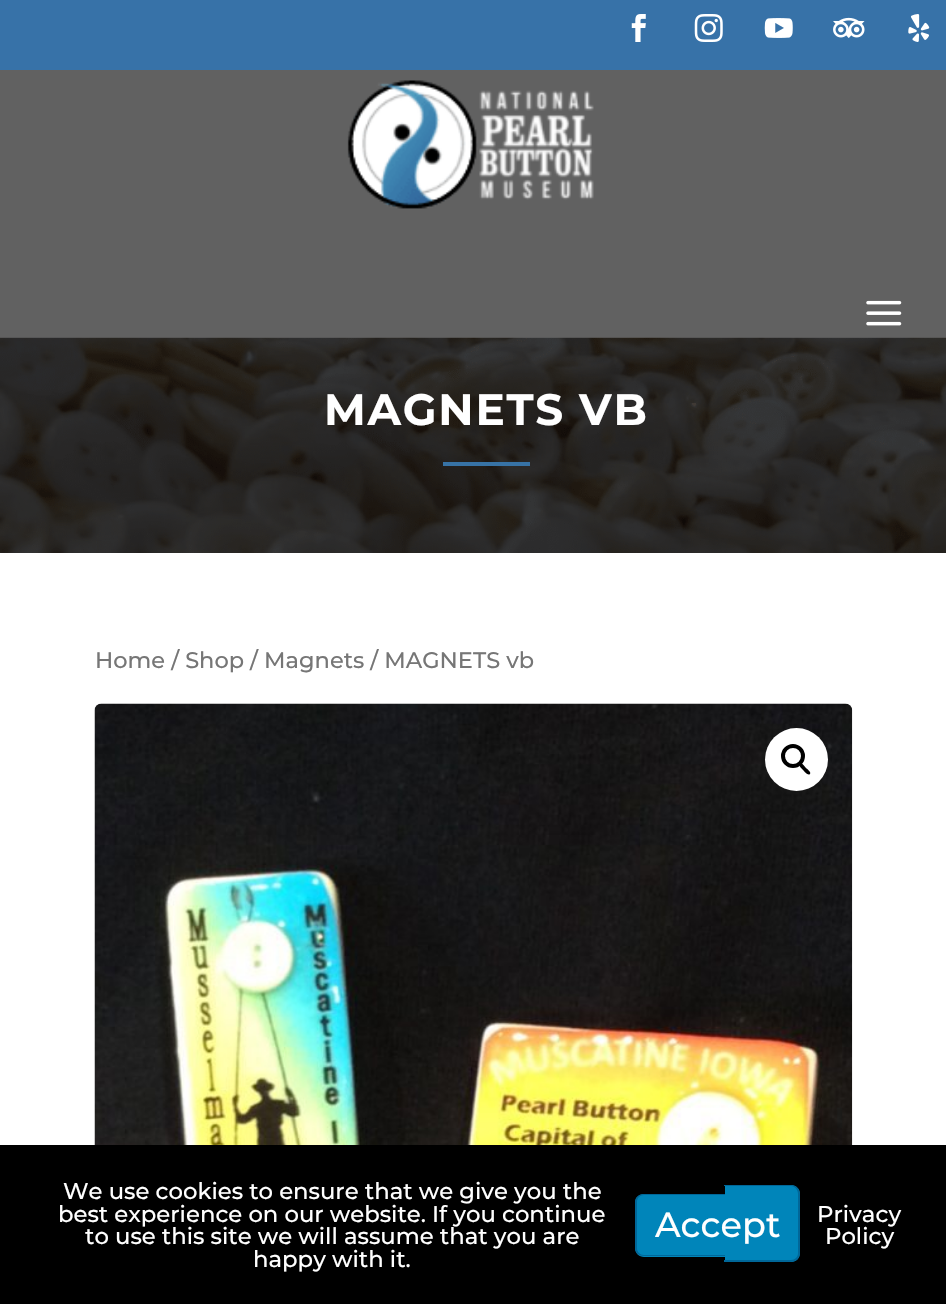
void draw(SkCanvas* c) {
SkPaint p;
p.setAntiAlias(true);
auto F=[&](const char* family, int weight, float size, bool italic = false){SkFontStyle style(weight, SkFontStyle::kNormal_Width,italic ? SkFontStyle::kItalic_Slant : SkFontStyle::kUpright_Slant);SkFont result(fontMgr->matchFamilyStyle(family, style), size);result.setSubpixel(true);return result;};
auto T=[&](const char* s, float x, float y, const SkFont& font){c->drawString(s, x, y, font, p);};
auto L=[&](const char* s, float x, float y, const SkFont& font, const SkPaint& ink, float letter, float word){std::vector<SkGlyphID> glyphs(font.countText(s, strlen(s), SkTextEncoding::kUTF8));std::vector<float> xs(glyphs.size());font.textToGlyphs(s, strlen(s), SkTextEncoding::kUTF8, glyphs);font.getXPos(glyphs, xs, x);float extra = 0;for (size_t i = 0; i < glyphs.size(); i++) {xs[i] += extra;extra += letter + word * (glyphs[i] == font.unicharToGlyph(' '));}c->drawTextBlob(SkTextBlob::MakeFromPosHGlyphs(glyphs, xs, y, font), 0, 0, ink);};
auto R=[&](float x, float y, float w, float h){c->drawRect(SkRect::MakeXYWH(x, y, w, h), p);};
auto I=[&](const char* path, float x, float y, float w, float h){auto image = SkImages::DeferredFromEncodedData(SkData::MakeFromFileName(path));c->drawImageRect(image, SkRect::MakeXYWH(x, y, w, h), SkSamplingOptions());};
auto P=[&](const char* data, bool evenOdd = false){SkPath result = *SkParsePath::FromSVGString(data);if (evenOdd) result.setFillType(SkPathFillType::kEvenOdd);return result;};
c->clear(0xffffffff);
p.setColor(0xff3772a8);
R(0,0,946,70);
I("1.png",631,14,15,28);
I("2.png",694,14,29,28);
I("3.png",764,18,29,20);
I("4.png",833,17,32,21);
I("5.png",908,14,22,28);
I("8.png",0,337,946,216);
p.setColor(0x9e000000);
R(0,70,946,268);
I("6.png",347,80,247,129);
I("7.png",866,300,36,26);
auto f1 = F("Montserrat",100,43.75);
p.setColor(0xffffffff);
L("MAGNETS VB",324,425,f1,p,1.75,0);
p.setColor(0xff3773a6);
R(443,462,87,4);
auto f2 = F("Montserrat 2",100,22.5);
p.setColor(0xff767676);
T("Home / Shop / Magnets / MAGNETS vb",95,668,f2);
I("9.png",94,703,759,442);
p.setColor(0xffffffff);
c->drawCircle(796.5,759.5,31.5,p);
p.setStroke(true);
p.setStrokeWidth(4);
p.setColor(0xff000000);
c->drawCircle(793,756,10,p);
p.setStroke(false);
c->drawPath(P("M800 764c2-2 5 3 6 4c1 1 5.5 4 4 6c-2 2-5.5-2.5-6.5-3.5c-1-1.5-5.5-4.5-3.5-6.5z"),p);
R(0,1145,946,159);
auto f3 = F("Montserrat 2",100,22.75);
p.setColor(0xffffffff);
T("We use cookies to ensure that we give you the",63,1199,f3);
T("best experience on our website. If you continue",58,1222,f3);
T("to use this site we will assume that you are",85,1244,f3);
T("happy with it.",253,1267,f3);
p.setColor(0xff0085ba);
c->drawPath(P("M644 1194h137v63h-137c-5 0-9-4-9-9v-45c0-5 4-9 9-9z"),p);
p.setColor(0xff006799);
c->drawPath(P("M644 1194h136v62h-136c-5 0-9-3-9-8v-46c0-5 4-8 9-8zm0 1h136v60h-136c-4 0-7-3-7-7v-46c0-4 3-7 7-7z",true),p);
p.setColor(0xff0085ba);
c->drawPath(P("M725 1185h66c5 0 9 4 9 9v59c0 5-4 9-9 9h-66z"),p);
p.setColor(0xff006799);
c->drawPath(P("M724 1185h67c5 0 9 4 9 9v59c0 5-4 9-9 9h-67zm0 1h67c4 0 7 4 7 8v59c0 4-3 7-7 7h-67z",true),p);
auto f4 = F("Montserrat 2",100,35);
p.setColor(0xffffffff);
T("Accept",655,1237,f4);
T("Privacy",817,1222,f3);
T("Policy",825,1244,f3);
}
